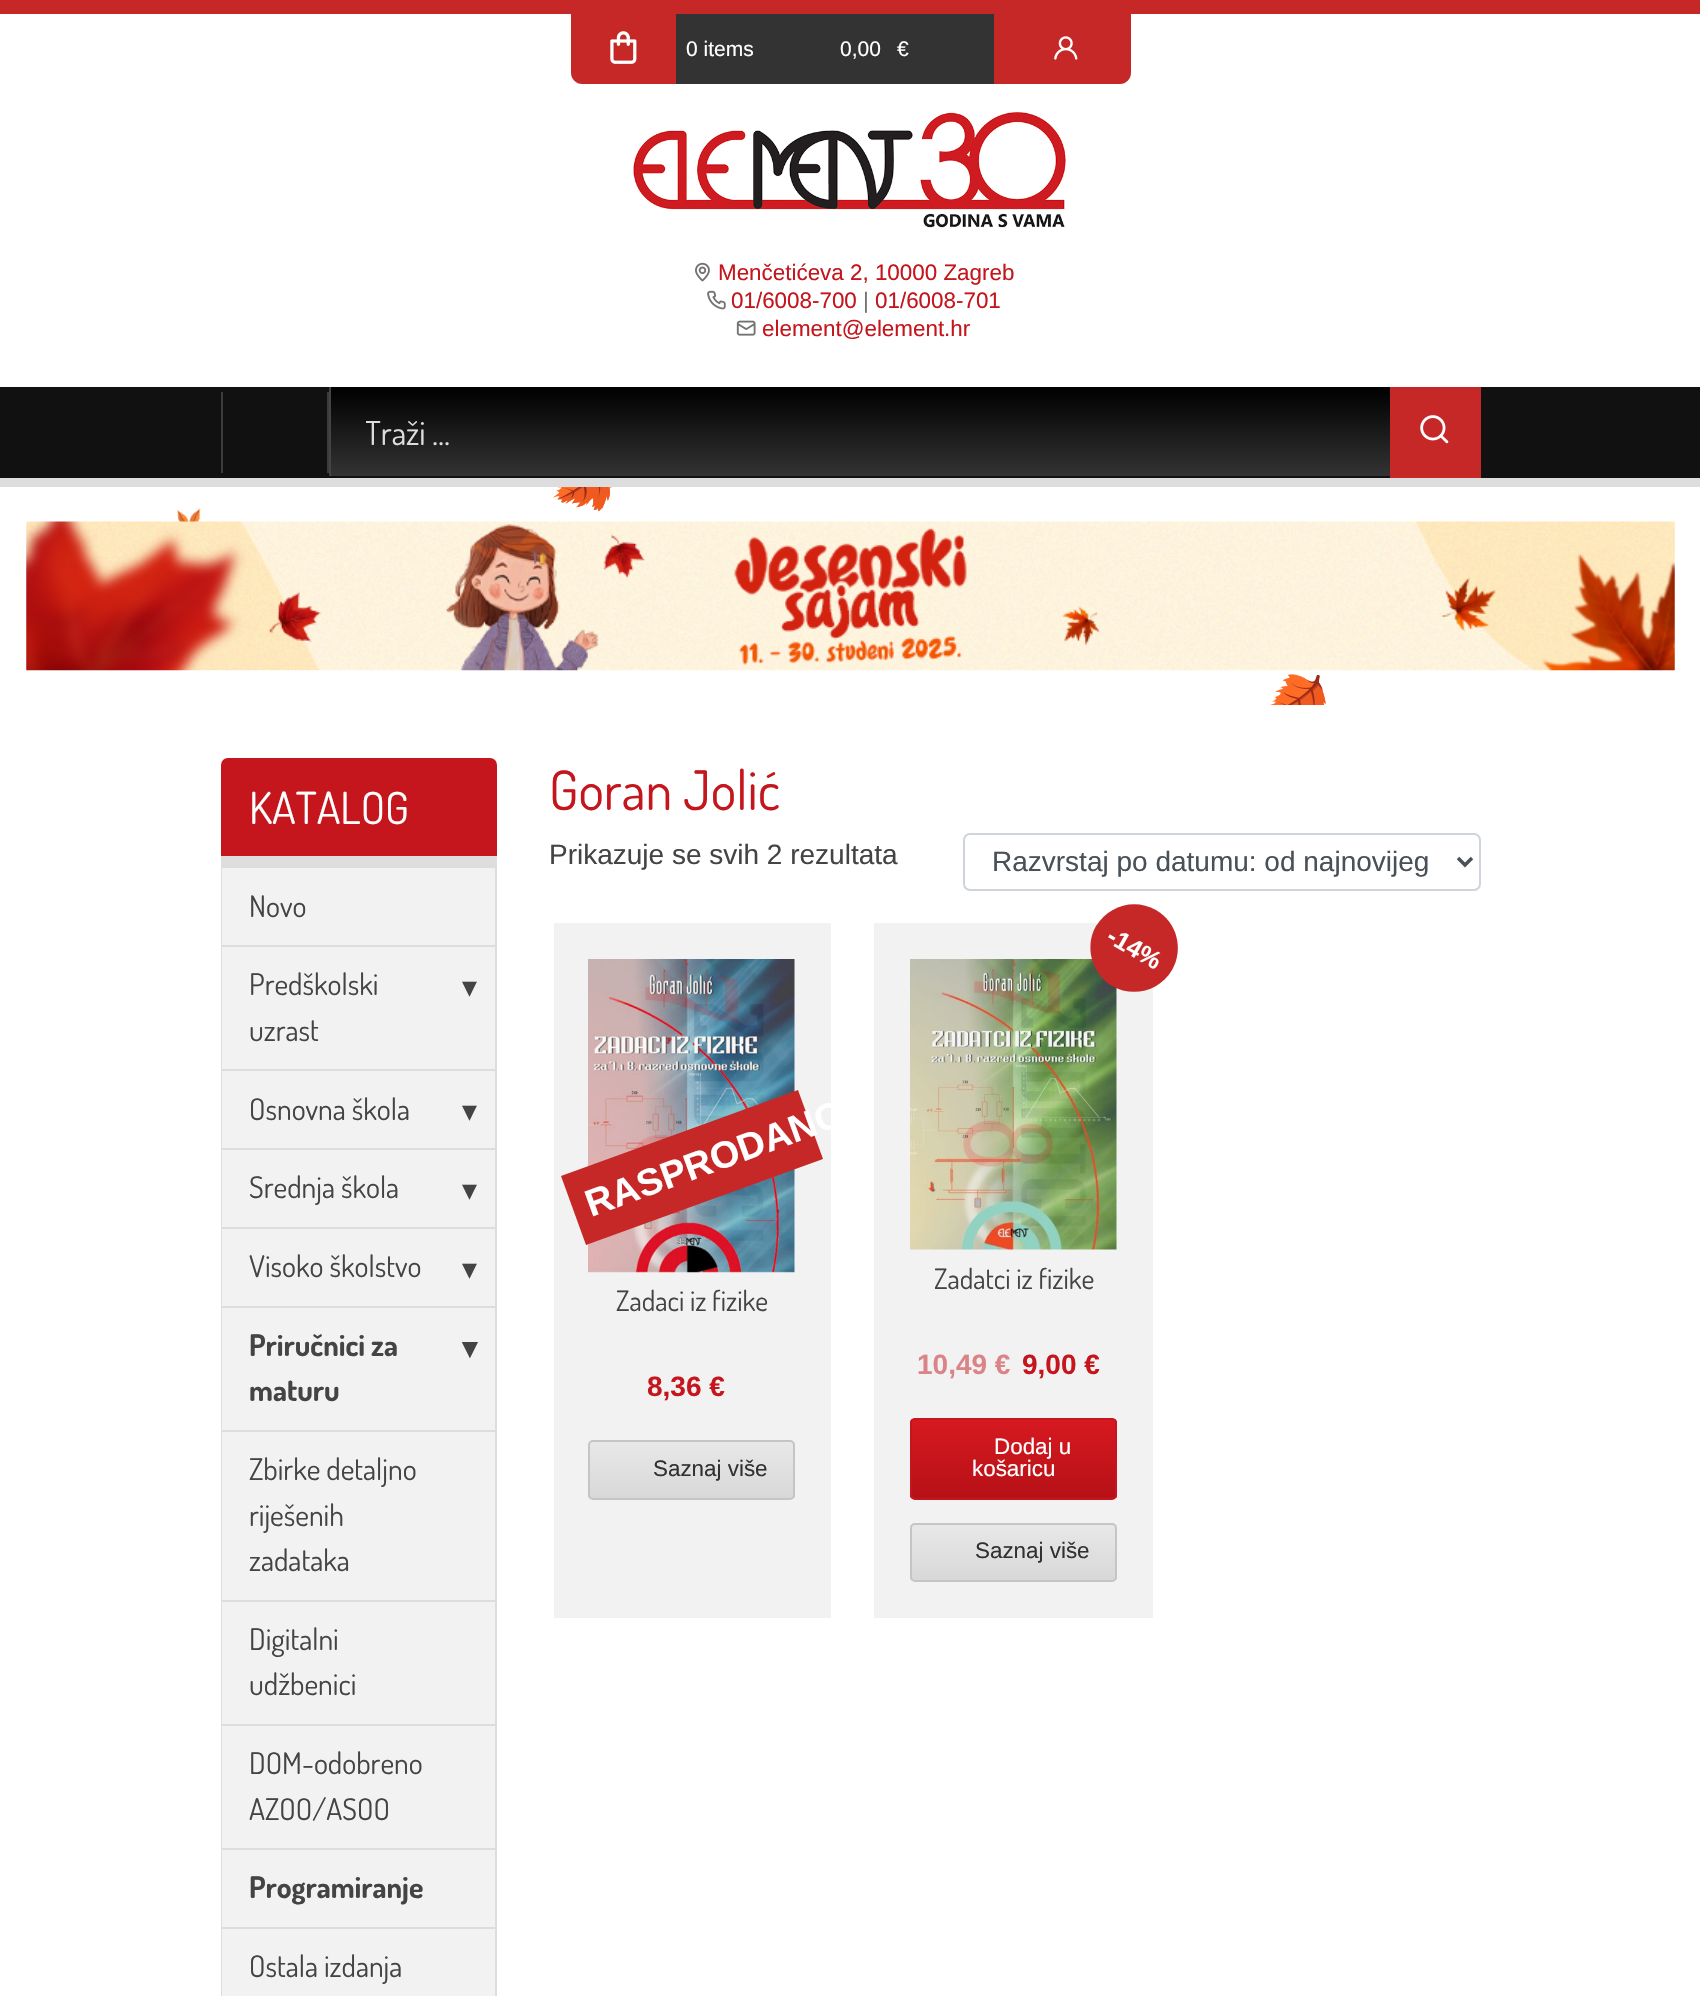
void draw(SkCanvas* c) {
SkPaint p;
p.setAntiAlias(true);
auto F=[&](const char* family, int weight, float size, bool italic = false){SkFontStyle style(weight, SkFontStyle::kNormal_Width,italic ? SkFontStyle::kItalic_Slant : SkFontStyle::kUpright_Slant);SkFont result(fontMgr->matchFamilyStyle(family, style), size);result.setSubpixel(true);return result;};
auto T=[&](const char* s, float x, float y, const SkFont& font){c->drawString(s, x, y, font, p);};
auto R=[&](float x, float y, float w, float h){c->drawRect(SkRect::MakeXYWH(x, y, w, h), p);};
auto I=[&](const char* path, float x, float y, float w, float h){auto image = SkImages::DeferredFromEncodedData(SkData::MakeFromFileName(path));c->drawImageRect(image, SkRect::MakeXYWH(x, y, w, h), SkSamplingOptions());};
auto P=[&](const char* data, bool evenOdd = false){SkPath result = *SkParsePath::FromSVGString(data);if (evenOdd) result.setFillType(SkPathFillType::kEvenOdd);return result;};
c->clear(0xffffffff);
p.setColor(0xffc62828);
R(0,0,1700,14);
c->drawPath(P("M571 14h560v59c0 6-5 11-11 11h-538c-6 0-11-5-11-11z"),p);
I("1.png",610,31,27,33);
p.setColor(0xff333333);
R(676,14,318,70);
auto f1 = F("Liberation Sans",400,21);
p.setColor(0xffffffff);
T("0 items",686,56,f1);
T("0,00",840,56,f1);
T("€",897,56,f1);
I("2.png",1054,36,24,24);
I("3.png",633,112,433,116);
I("4.png",695,262,15,20);
auto f2 = F("Liberation Sans",400,22.4);
p.setColor(0xffc4161c);
T("Menčetićeva 2, 10000 Zagreb",718,280,f2);
I("5.png",707,290,19,20);
T("01/6008-700",731,308,f2);
p.setColor(0xff737373);
T("|",863,308,f2);
p.setColor(0xffc4161c);
T("01/6008-701",875,308,f2);
I("6.png",736,320,20,16);
T("element@element.hr",762,336,f2);
p.setColor(0xff111111);
R(0,387,1700,91);
p.setColor(0xffdddddd);
R(0,478,1700,9);
p.setColor(0xff3c3c3c);
R(327,392,2,81);
R(221,392,2,81);
{
const SkColor colors[] = {0xff000000,0xff333333};
const float stops[] = {0,1};
const SkPoint ends[] = {{860,387}, {860,476}};
p.setShader(SkGradientShader::MakeLinear(ends, colors, stops, 2, SkTileMode::kClamp));
p.setAlpha(255);
}
R(331,387,1059,89);
p.setShader(nullptr);
p.setColor(0xff444444);
R(329,387,2,89);
c->save();
c->clipRect(SkRect::MakeXYWH(366,410,989,43));
auto f3 = F("Dosis",400,33);
p.setColor(0xffdddddd);
T("Traži …",365,445,f3);
c->restore();
p.setColor(0xffc62828);
R(1390,387,91,91);
I("7.png",1420,415,29,29);
I("12.png",177,508,24,14);
I("8.png",26,521,1649,150);
p.setColor(0xffdedede);
R(221,856,276,9);
p.setColor(0xffc4161c);
c->drawPath(P("M228 759h262c3.5 0 6 2.5 6 6v90h-274v-90c0-3.5 2.5-6 6-6z"),p);
p.setStroke(true);
p.setStrokeWidth(2);
c->drawPath(P("M228 759h262c3.5 0 6 2.5 6 6v90h-274v-90c0-3.5 2.5-6 6-6z"),p);
auto f4 = F("Dosis",400,44);
p.setStroke(false);
p.setColor(0xffffffff);
T("KATALOG",249,824,f4);
p.setStroke(true);
p.setColor(0xffdddddd);
c->drawRect(SkRect::MakeXYWH(222,866,274,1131),p);
p.setStroke(false);
p.setColor(0xfff2f2f2);
R(222,868,273,77);
p.setColor(0xffdddddd);
R(222,867,273,1);
auto f5 = F("Dosis",400,29.75);
p.setColor(0xff444444);
T("Novo",249,917,f5);
p.setColor(0xfff2f2f2);
R(222,947,273,122);
p.setColor(0xffdddddd);
R(222,945,273,2);
p.setColor(0xff444444);
T("Predškolski",249,995,f5);
auto f6 = F("DejaVu Sans",400,29.75);
T("▾",462,997,f6);
T("uzrast",249,1041,f5);
p.setColor(0xfff2f2f2);
R(222,1071,273,77);
p.setColor(0xffdddddd);
R(222,1069,273,2);
p.setColor(0xff444444);
T("Osnovna škola",249,1120,f5);
T("▾",462,1121,f6);
p.setColor(0xfff2f2f2);
R(222,1150,273,77);
p.setColor(0xffdddddd);
R(222,1148,273,2);
p.setColor(0xff444444);
T("Srednja škola",249,1198,f5);
T("▾",462,1200,f6);
p.setColor(0xfff2f2f2);
R(222,1229,273,77);
p.setColor(0xffdddddd);
R(222,1227,273,2);
p.setColor(0xff444444);
T("Visoko školstvo",249,1277,f5);
T("▾",462,1279,f6);
p.setColor(0xfff2f2f2);
R(222,1308,273,122);
p.setColor(0xffdddddd);
R(222,1306,273,2);
auto f7 = F("Dosis",700,29.75);
p.setColor(0xff444444);
T("Priručnici za",249,1356,f7);
auto f8 = F("DejaVu Sans",700,29.75);
T("▾",462,1358,f8);
T("maturu",249,1401,f7);
p.setColor(0xfff2f2f2);
R(222,1432,273,168);
p.setColor(0xffdddddd);
R(222,1430,273,2);
p.setColor(0xff444444);
T("Zbirke detaljno",249,1480,f5);
T("riješenih",249,1526,f5);
T("zadataka",249,1571,f5);
p.setColor(0xfff2f2f2);
R(222,1602,273,122);
p.setColor(0xffdddddd);
R(222,1600,273,2);
p.setColor(0xff444444);
T("Digitalni",249,1650,f5);
T("udžbenici",249,1695,f5);
p.setColor(0xfff2f2f2);
R(222,1726,273,122);
p.setColor(0xffdddddd);
R(222,1724,273,2);
p.setColor(0xff444444);
T("DOM-odobreno",249,1774,f5);
T("AZOO/ASOO",249,1820,f5);
p.setColor(0xfff2f2f2);
R(222,1850,273,77);
p.setColor(0xffdddddd);
R(222,1848,273,2);
p.setColor(0xff444444);
T("Programiranje",249,1898,f7);
p.setColor(0xfff2f2f2);
R(222,1929,273,67);
p.setColor(0xffdddddd);
R(222,1927,273,2);
p.setColor(0xff444444);
T("Ostala izdanja",249,1977,f5);
auto f9 = F("Dosis",400,54.25);
p.setColor(0xffc4161c);
T("Goran Jolić",549,810,f9);
auto f10 = F("Liberation Sans",400,28);
p.setColor(0xff444444);
T("Prikazuje se svih 2 rezultata",549,864,f10);
p.setStroke(true);
p.setColor(0xffced4da);
c->drawRoundRect(SkRect::MakeXYWH(964,834,516,56),6,6,p);
p.setStrokeWidth(3.5);
p.setColor(0xff495057);
c->drawPath(P("M1458 858l7 7l7-7"),p);
p.setStroke(false);
T("Razvrstaj po datumu: od najnovijeg",992,871,f10);
p.setColor(0xfff2f2f2);
R(554,923,277,695);
I("9.png",588,959,207,314);
p.setColor(0xffc62828);
c->drawPath(P("M561 1176l237-86l25 69l-237 86z"),p);
auto f11 = F("Liberation Sans",700,37.75);
p.setColor(0xffffffff);
c->save();
c->rotate(-20,591,1217);
T("RASPRODANO",591,1217,f11);
c->restore();
auto f12 = F("Dosis",400,28);
p.setColor(0xff444444);
T("Zadaci iz fizike",616,1311,f12);
auto f13 = F("Liberation Sans",700,28);
p.setColor(0xffc4161c);
T("8,36 €",647,1396,f13);
c->save();
c->clipPath(P("M593 1440h197c3 0 5 2 5 5v50c0 3-2 5-5 5h-197c-3 0-5-2-5-5v-50c0-3 2-5 5-5z"),true);
{
const SkColor colors[] = {0xffd8d8d8,0xffe8e8e8};
const float stops[] = {0,1};
const SkPoint ends[] = {{691,1498}, {691,1442}};
p.setShader(SkGradientShader::MakeLinear(ends, colors, stops, 2, SkTileMode::kClamp));
p.setAlpha(255);
}
R(588,1442,207,56);
c->restore();
p.setStroke(true);
p.setStrokeWidth(2);
p.setShader(nullptr);
p.setColor(0xffc5c5c5);
c->drawRoundRect(SkRect::MakeXYWH(589,1441,205,58),4,4,p);
p.setStroke(false);
p.setColor(0xff313131);
T("Saznaj više",653,1476,f2);
p.setColor(0xfff2f2f2);
R(874,923,279,695);
I("10.png",910,959,207,291);
p.setColor(0xffc62828);
c->drawPath(P("M1156 910c21 12 28 39 16 60c-12 21-39 28-60 16c-20-12-28-39-16-60c13-21 39-28 60-16z"),p);
auto f14 = F("Liberation Sans",700,25);
p.setColor(0xffffffff);
c->save();
c->rotate(30,1105,941);
T("-14",1105,941,f14);
c->restore();
c->save();
c->rotate(30,1136,959);
T("%",1136,959,f14);
c->restore();
c->save();
c->clipRect(SkRect::MakeXYWH(935,1250,159,98));
p.setColor(0xff444444);
T("Zadatci iz fizike",934,1289,f12);
c->restore();
p.setColor(0xffdb8487);
T("10,49 €",917,1374,f13);
p.setColor(0xffc4161c);
T("9,00 €",1022,1374,f13);
c->save();
c->clipPath(P("M915 1418h197c3 0 5 2 5 5v72c0 3-2 5-5 5h-197c-3 0-5-2-5-5v-72c0-3 2-5 5-5z"),true);
{
const SkColor colors[] = {0xffb61117,0xffd71920};
const float stops[] = {0,1};
const SkPoint ends[] = {{1013,1498}, {1013,1419}};
p.setShader(SkGradientShader::MakeLinear(ends, colors, stops, 2, SkTileMode::kClamp));
p.setAlpha(255);
}
R(910,1419,207,79);
c->restore();
p.setStroke(true);
p.setShader(nullptr);
p.setColor(0xffc4161c);
c->drawRoundRect(SkRect::MakeXYWH(911,1419,205,80),4,4,p);
p.setStroke(false);
p.setColor(0xffffffff);
T("Dodaj u",994,1454,f2);
T("košaricu",972,1476,f2);
c->save();
c->clipPath(P("M915 1523h197c3 0 5 2 5 5v49c0 3-2 5-5 5h-197c-3 0-5-2-5-5v-49c0-3 2-5 5-5z"),true);
{
const SkColor colors[] = {0xffd8d8d8,0xffe8e8e8};
const float stops[] = {0,1};
const SkPoint ends[] = {{1013,1580}, {1013,1524}};
p.setShader(SkGradientShader::MakeLinear(ends, colors, stops, 2, SkTileMode::kClamp));
p.setAlpha(255);
}
R(910,1524,207,56);
c->restore();
p.setStroke(true);
p.setShader(nullptr);
p.setColor(0xffc5c5c5);
c->drawRoundRect(SkRect::MakeXYWH(911,1524,205,57),4,4,p);
p.setStroke(false);
p.setColor(0xff313131);
T("Saznaj više",975,1558,f2);
I("11.png",553,487,59,25);
I("13.png",1270,674,56,31);
}
